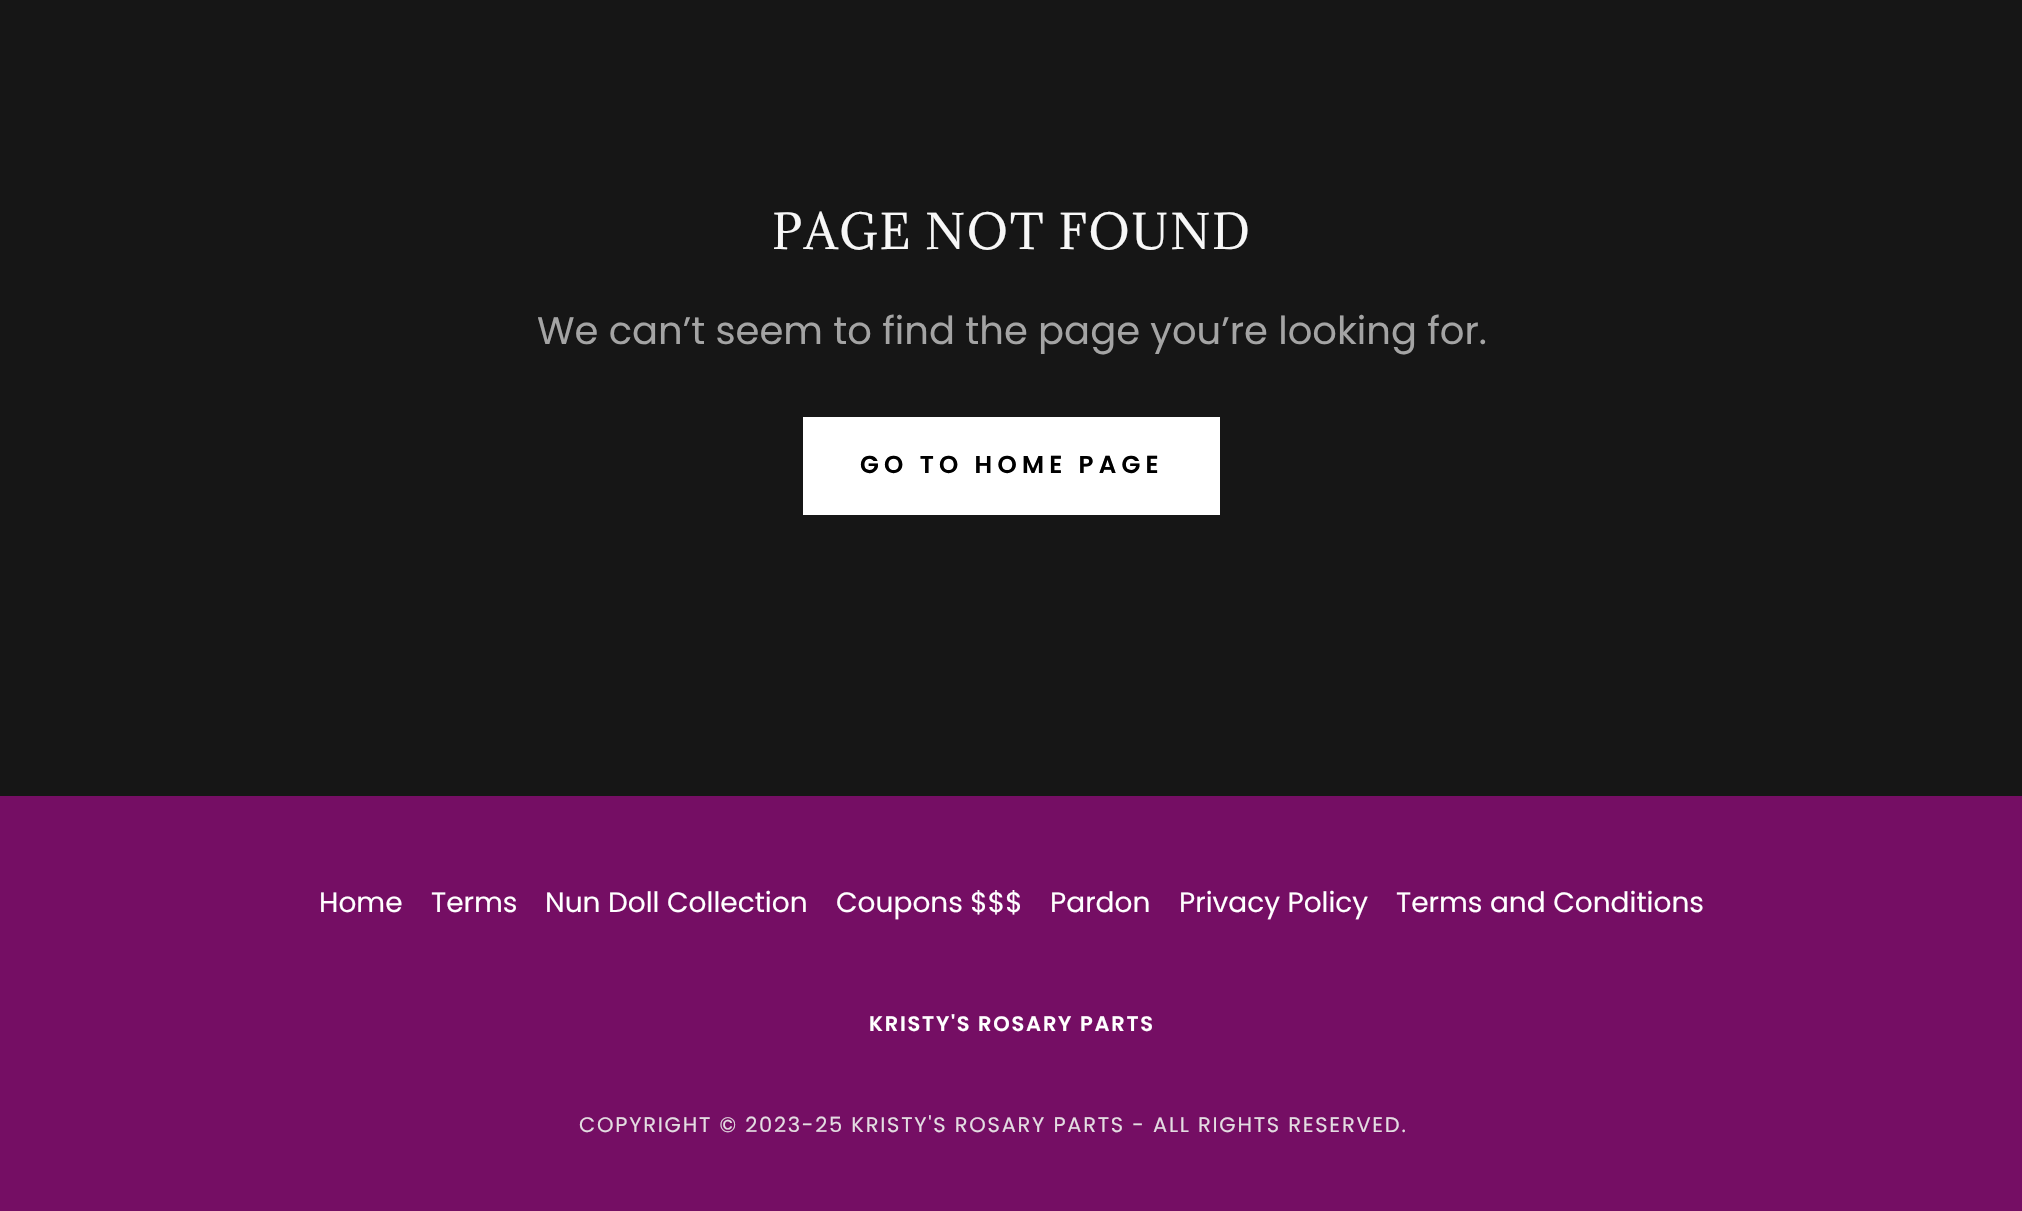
void draw(SkCanvas* c) {
SkPaint p;
p.setAntiAlias(true);
auto F=[&](const char* family, int weight, float size, bool italic = false){SkFontStyle style(weight, SkFontStyle::kNormal_Width,italic ? SkFontStyle::kItalic_Slant : SkFontStyle::kUpright_Slant);SkFont result(fontMgr->matchFamilyStyle(family, style), size);result.setSubpixel(true);return result;};
auto T=[&](const char* s, float x, float y, const SkFont& font){c->drawString(s, x, y, font, p);};
auto L=[&](const char* s, float x, float y, const SkFont& font, const SkPaint& ink, float letter, float word){std::vector<SkGlyphID> glyphs(font.countText(s, strlen(s), SkTextEncoding::kUTF8));std::vector<float> xs(glyphs.size());font.textToGlyphs(s, strlen(s), SkTextEncoding::kUTF8, glyphs);font.getXPos(glyphs, xs, x);float extra = 0;for (size_t i = 0; i < glyphs.size(); i++) {xs[i] += extra;extra += letter + word * (glyphs[i] == font.unicharToGlyph(' '));}c->drawTextBlob(SkTextBlob::MakeFromPosHGlyphs(glyphs, xs, y, font), 0, 0, ink);};
auto R=[&](float x, float y, float w, float h){c->drawRect(SkRect::MakeXYWH(x, y, w, h), p);};
c->clear(0xff750e64);
p.setColor(0xff161616);
R(0,0,2022,796);
auto f1 = F("Adamina",400,45.5);
p.setColor(0xfff7f7f7);
L("PAGE NOT FOUND",772,249,f1,p,1.75,0);
auto f2 = F("Poppins",400,38.5);
p.setColor(0xffa4a4a4);
T("We can’t seem to find the page you’re looking for.",537,344,f2);
p.setColor(0xffffffff);
R(803,417,417,98);
auto f3 = F("Poppins",600,24.5);
p.setColor(0xff000000);
L("GO TO HOME PAGE",860,473,f3,p,5.25,0);
auto f4 = F("Poppins",400,28);
p.setColor(0xffffffff);
T("Home",319,912,f4);
T("Terms",431,912,f4);
T("Nun Doll Collection",545,912,f4);
T("Coupons $$$",836,912,f4);
T("Pardon",1050,912,f4);
T("Privacy Policy",1179,912,f4);
T("Terms and Conditions",1396,912,f4);
auto f5 = F("Poppins",600,21);
L("KRISTY'S ROSARY PARTS",869,1031,f5,p,1.75,0);
auto f6 = F("Poppins",400,21);
p.setColor(0xffe4dde2);
L("COPYRIGHT © 2023-25 KRISTY'S ROSARY PARTS - ALL RIGHTS RESERVED.",579,1132,f6,p,1.75,0);
}
